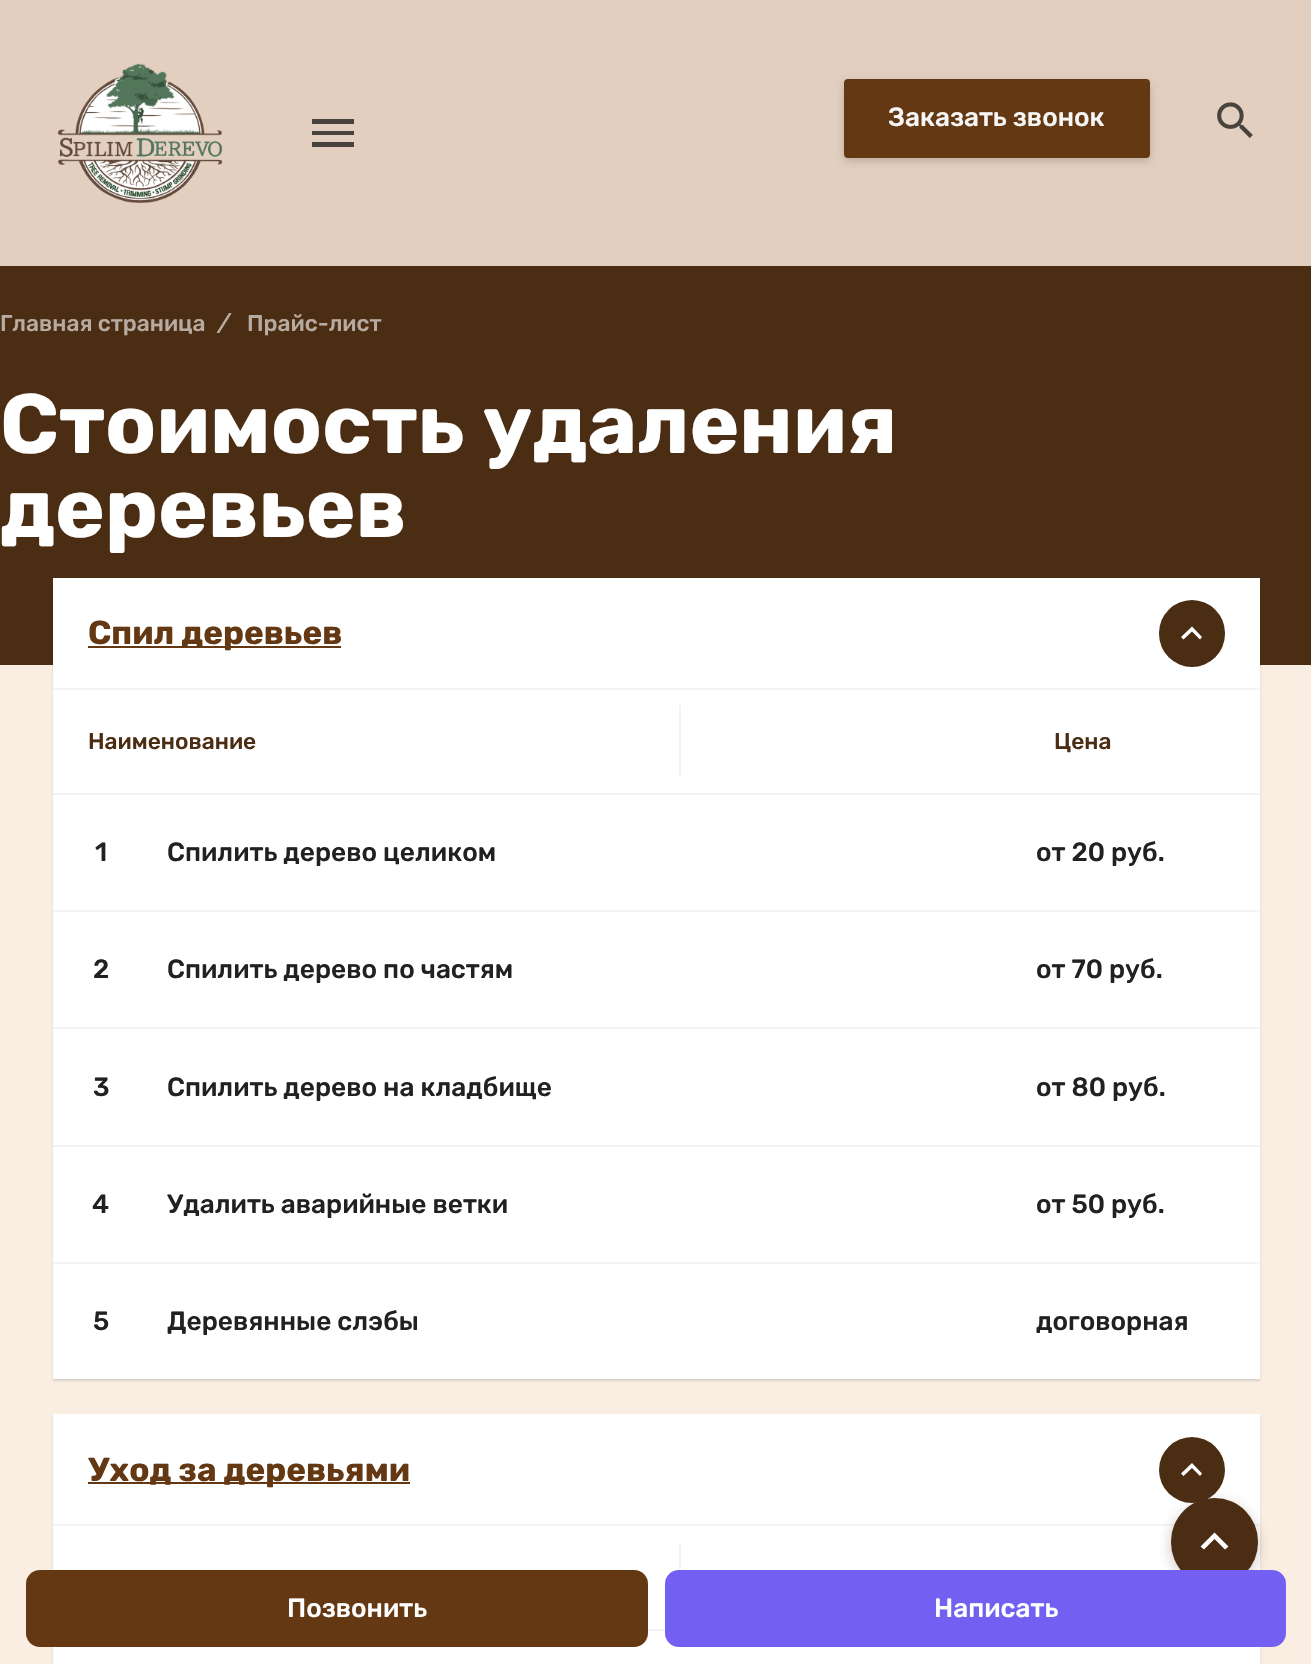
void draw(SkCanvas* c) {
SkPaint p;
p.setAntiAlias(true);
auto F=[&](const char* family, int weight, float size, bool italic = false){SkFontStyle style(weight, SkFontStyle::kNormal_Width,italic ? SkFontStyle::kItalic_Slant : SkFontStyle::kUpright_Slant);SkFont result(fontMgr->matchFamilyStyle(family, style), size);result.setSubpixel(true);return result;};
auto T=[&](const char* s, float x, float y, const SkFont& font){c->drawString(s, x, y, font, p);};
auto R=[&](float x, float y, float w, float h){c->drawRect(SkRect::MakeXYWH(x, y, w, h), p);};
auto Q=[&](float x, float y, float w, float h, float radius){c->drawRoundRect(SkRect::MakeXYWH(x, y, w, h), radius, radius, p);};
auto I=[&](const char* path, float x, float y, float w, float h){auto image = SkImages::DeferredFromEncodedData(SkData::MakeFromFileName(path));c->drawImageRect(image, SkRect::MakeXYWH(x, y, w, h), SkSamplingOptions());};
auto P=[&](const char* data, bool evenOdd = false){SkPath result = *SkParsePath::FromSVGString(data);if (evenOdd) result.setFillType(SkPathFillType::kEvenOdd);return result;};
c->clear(0xfffaede2);
p.setColor(0xffe2cfbf);
R(0,0,1311,266);
I("1.png",57,63,166,140);
p.setColor(0x2b000000);
p.setMaskFilter(SkMaskFilter::MakeBlur(kNormal_SkBlurStyle, 4.5));
c->drawRoundRect(SkRect::MakeXYWH(844,82,306,79),4,4,p);
p.setMaskFilter(nullptr);
p.setColor(0xff643812);
Q(844,79,306,79,4);
auto f1 = F("Rubik",500,26.25);
p.setColor(0xfff6f6f6);
T("Заказать звонок",888,126,f1);
I("2.png",1217,102,36,36);
p.setColor(0xff48423d);
c->drawPath(P("M312 119h42v5h-42zm0 16v-4h42v4zm0 12v-5h42v5z"),p);
p.setColor(0xff4b2d14);
R(0,266,1311,399);
auto f2 = F("Rubik",500,22.75);
p.setColor(0xffb7aba1);
T("Главная страница",0,331,f2);
auto f3 = F("Rubik",500,22.75,true);
T("/",218,331,f3);
T("Прайс-лист",247,331,f2);
auto f4 = F("Rubik",700,84);
p.setColor(0xffffffff);
T("Стоимость удаления",0,453,f4);
T("деревьев",0,537,f4);
p.setColor(0x1f000000);
p.setMaskFilter(SkMaskFilter::MakeBlur(kNormal_SkBlurStyle, 1));
c->drawRect(SkRect::MakeXYWH(53,579,1207,802),p);
p.setMaskFilter(nullptr);
p.setColor(0xffffffff);
R(53,578,1207,801);
p.setColor(0xff643812);
R(88,646,253,2);
auto f5 = F("Rubik",700,33.25);
T("Спил деревьев",88,644,f5);
p.setColor(0xff4b2d14);
Q(1159,600,66,67,33);
p.setColor(0xffffffff);
c->drawPath(P("M1192 626.5l10 10.5l-2 2.5l-8-8l-8.5 8l-2.5-2.5z"),p);
p.setColor(0xfff4f4f4);
R(53,688,1207,2);
R(679,705,2,72);
p.setColor(0xff4b2d14);
T("Наименование",88,749,f2);
T("Цена",1054,749,f2);
p.setColor(0xfff4f4f4);
R(53,793,1207,2);
p.setColor(0xff212121);
T("1",95,861,f1);
T("Спилить дерево целиком",167,861,f1);
T("от 20 руб.",1036,861,f1);
p.setColor(0xfff4f4f4);
R(53,910,1207,2);
p.setColor(0xff212121);
T("2",93,978,f1);
T("Спилить дерево по частям",167,978,f1);
T("от 70 руб.",1036,978,f1);
p.setColor(0xfff4f4f4);
R(53,1027,1207,2);
p.setColor(0xff212121);
T("3",93,1096,f1);
T("Спилить дерево на кладбище",167,1096,f1);
T("от 80 руб.",1036,1096,f1);
p.setColor(0xfff4f4f4);
R(53,1145,1207,2);
p.setColor(0xff212121);
T("4",92,1213,f1);
T("Удалить аварийные ветки",167,1213,f1);
T("от 50 руб.",1036,1213,f1);
p.setColor(0xfff4f4f4);
R(53,1262,1207,2);
p.setColor(0xff212121);
T("5",93,1330,f1);
T("Деревянные слэбы",167,1330,f1);
T("договорная",1036,1330,f1);
p.setColor(0x1f000000);
p.setMaskFilter(SkMaskFilter::MakeBlur(kNormal_SkBlurStyle, 1));
c->drawRect(SkRect::MakeXYWH(53,1416,1207,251),p);
p.setMaskFilter(nullptr);
p.setColor(0xffffffff);
R(53,1414,1207,250);
p.setColor(0xff643812);
R(88,1482,322,2);
T("Уход за деревьями",88,1481,f5);
p.setColor(0xff4b2d14);
c->drawCircle(1192,1470,33,p);
p.setColor(0xffffffff);
c->drawPath(P("M1192 1463l10 10.5l-2 2.5l-8-8l-8.5 8l-2.5-2.5z"),p);
p.setColor(0xfff4f4f4);
R(53,1524,1207,2);
R(679,1542,2,28);
R(648,1629,17,2);
p.setColor(0xff643812);
Q(26,1570,622,77,14);
p.setColor(0xffffffff);
T("Позвонить",287,1617,f1);
p.setColor(0x454b2d14);
p.setMaskFilter(SkMaskFilter::MakeBlur(kNormal_SkBlurStyle, 7));
c->drawRoundRect(SkRect::MakeXYWH(1171,1502,87,87),43.5,43.5,p);
p.setMaskFilter(nullptr);
p.setColor(0xff4b2d14);
Q(1171,1498,87,88,43.5);
p.setColor(0xff7360f2);
Q(665,1570,621,77,14);
p.setColor(0xffffffff);
T("Написать",934,1617,f1);
c->drawPath(P("M1204 1549.5l-3.5-3l14-14l14 14l-3.5 3l-10.5-10.5z"),p);
}
